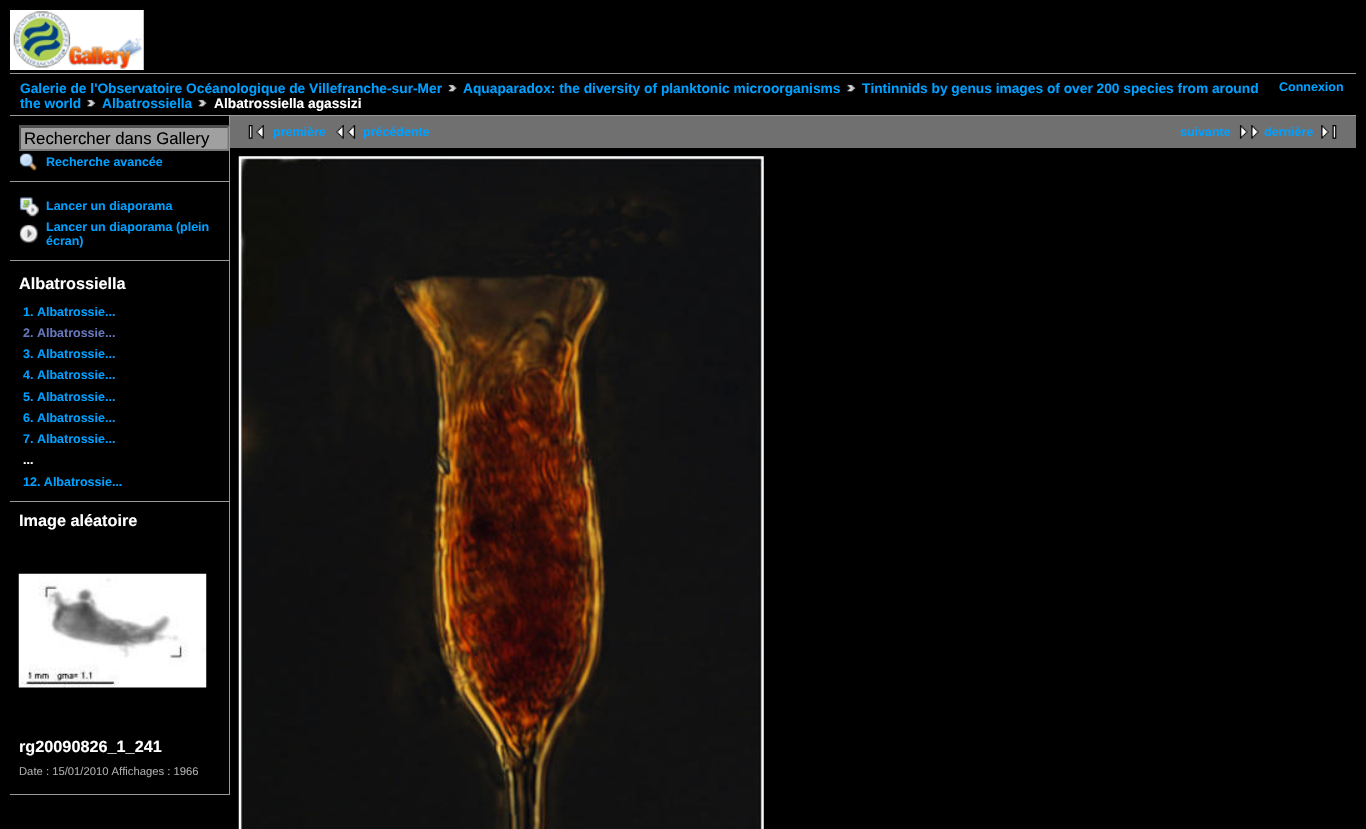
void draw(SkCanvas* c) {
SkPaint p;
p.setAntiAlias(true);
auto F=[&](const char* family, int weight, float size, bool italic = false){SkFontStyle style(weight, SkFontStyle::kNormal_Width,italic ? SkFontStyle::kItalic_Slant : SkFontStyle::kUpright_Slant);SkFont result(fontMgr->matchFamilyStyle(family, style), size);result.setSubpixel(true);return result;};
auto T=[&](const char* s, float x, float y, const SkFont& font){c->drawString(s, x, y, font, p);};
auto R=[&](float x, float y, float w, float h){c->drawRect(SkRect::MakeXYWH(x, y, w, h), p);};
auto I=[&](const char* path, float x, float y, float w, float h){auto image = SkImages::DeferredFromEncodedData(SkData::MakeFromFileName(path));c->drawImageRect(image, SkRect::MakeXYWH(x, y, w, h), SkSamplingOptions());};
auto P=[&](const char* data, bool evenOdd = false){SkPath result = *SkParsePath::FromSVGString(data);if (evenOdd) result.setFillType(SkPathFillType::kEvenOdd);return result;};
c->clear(0xff000000);
I("1.png",10,10,134,60);
p.setColor(0xff999999);
R(10,73,1346,1);
R(10,115,1346,1);
auto f1 = F("Liberation Sans",700,13.75);
p.setColor(0xff00a0ff);
T("Galerie de l'Observatoire Océanologique de Villefranche-sur-Mer",20,93,f1);
I("2.png",448,84,9,8);
T("Aquaparadox: the diversity of planktonic microorganisms",463,93,f1);
I("3.png",847,84,9,8);
T("Tintinnids by genus images of over 200 species from around",862,93,f1);
T("the world",20,108,f1);
I("3.png",87,99,9,8);
T("Albatrossiella",102,108,f1);
I("2.png",198,99,9,8);
p.setColor(0xffffffff);
T("Albatrossiella agassizi",214,108,f1);
auto f2 = F("Liberation Sans",700,12.5);
p.setColor(0xff00a0ff);
T("Connexion",1279,91,f2);
p.setColor(0xff999999);
R(229,116,1,679);
R(10,181,219,1);
p.setColor(0xffa0a0a0);
R(19,125,210,26);
p.setColor(0xff4f4f4f);
c->drawPath(P("M19 125h211l-2 3h-207z"),p);
c->save();
c->clipRect(SkRect::MakeXYWH(10,116,219,679));
p.setColor(0xff767676);
c->drawPath(P("M230 125v26l-2.5-2v-21.5z"),p);
c->restore();
c->drawPath(P("M230 151h-211l2-2h207z"),p);
p.setColor(0xff4f4f4f);
c->drawPath(P("M19 151v-26l2 2.5v21.5z"),p);
auto f3 = F("Liberation Sans",400,16.75);
p.setColor(0xff000000);
T("Rechercher dans Gallery",24,144,f3);
I("4.png",19,153,18,19);
p.setColor(0xff00a0ff);
T("Recherche avancée",46,166,f2);
p.setColor(0xff999999);
R(10,260,219,1);
I("5.png",19,197,20,20);
p.setColor(0xff00a0ff);
T("Lancer un diaporama",46,210,f2);
I("6.png",19,224,19,19);
T("Lancer un diaporama (plein",46,231,f2);
T("écran)",46,245,f2);
p.setColor(0xff999999);
R(10,501,219,1);
auto f4 = F("Liberation Sans",700,16.25);
p.setColor(0xffffffff);
T("Albatrossiella",19,289,f4);
p.setColor(0xff00a0ff);
T("1. Albatrossie...",23,316,f2);
p.setColor(0xff6677bb);
T("2. Albatrossie...",23,337,f2);
p.setColor(0xff00a0ff);
T("3. Albatrossie...",23,358,f2);
T("4. Albatrossie...",23,379,f2);
T("5. Albatrossie...",23,401,f2);
T("6. Albatrossie...",23,422,f2);
T("7. Albatrossie...",23,443,f2);
p.setColor(0xffffffff);
T("...",23,464,f2);
p.setColor(0xff00a0ff);
T("12. Albatrossie...",23,486,f2);
p.setColor(0xff999999);
R(10,794,219,1);
p.setColor(0xffffffff);
T("Image aléatoire",19,526,f4);
I("7.png",18,573,189,115);
T("rg20090826_1_241",19,752,f4);
auto f5 = F("Liberation Sans",400,11.25);
p.setColor(0xffaaaaaa);
T("Date : 15/01/2010 Affichages : 1966",19,775,f5);
p.setColor(0xff707070);
R(230,116,1126,32);
I("8.png",248,125,16,14);
p.setColor(0xff00a0ff);
T("première",273,136,f2);
I("9.png",336,125,20,14);
T("précédente",363,136,f2);
T("suivante",1180,136,f2);
I("10.png",1239,125,20,14);
T("dernière",1264,136,f2);
I("11.png",1321,125,16,14);
I("12.png",238,156,526,673);
}
